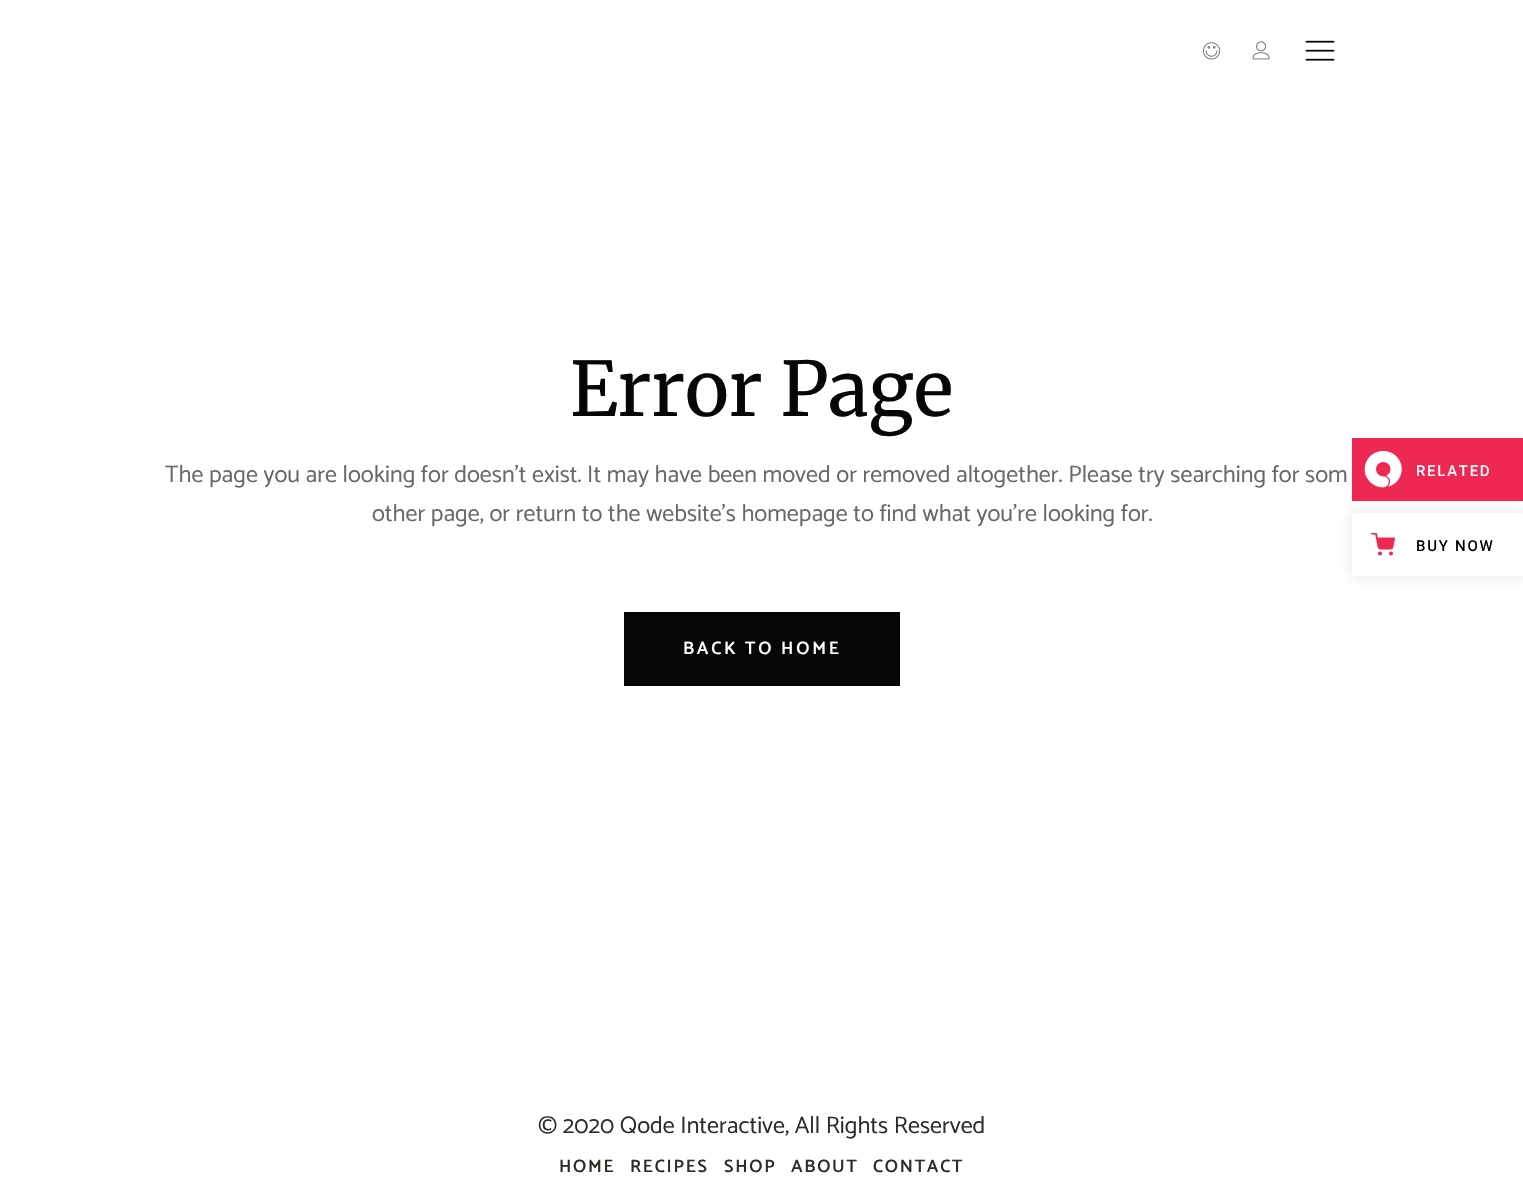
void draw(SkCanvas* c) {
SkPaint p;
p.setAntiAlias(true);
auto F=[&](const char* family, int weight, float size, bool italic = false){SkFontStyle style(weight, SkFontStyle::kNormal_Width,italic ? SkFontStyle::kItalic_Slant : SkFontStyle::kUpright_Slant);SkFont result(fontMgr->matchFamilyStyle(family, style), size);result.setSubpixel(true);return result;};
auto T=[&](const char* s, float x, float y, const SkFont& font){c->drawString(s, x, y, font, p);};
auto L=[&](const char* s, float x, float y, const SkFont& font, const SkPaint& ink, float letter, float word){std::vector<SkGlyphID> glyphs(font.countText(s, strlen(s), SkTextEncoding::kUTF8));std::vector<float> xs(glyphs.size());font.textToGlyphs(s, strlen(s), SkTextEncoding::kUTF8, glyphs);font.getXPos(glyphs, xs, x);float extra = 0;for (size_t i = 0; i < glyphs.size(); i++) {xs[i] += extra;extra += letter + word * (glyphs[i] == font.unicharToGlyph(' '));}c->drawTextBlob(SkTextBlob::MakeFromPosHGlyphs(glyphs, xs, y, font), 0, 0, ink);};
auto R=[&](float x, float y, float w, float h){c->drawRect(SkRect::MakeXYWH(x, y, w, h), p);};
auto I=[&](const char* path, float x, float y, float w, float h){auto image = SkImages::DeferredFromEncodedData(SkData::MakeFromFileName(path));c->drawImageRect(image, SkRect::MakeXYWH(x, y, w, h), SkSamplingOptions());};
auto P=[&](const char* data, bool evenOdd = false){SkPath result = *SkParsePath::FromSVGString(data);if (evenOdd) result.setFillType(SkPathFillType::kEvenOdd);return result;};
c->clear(0xffffffff);
I("1.png",1203,42,18,18);
I("2.png",1252,41,18,19);
I("3.png",1305,40,30,21);
auto f1 = F("Merriweather",400,75);
p.setColor(0xff060606);
T("Error Page",570,416,f1);
auto f2 = F("Catamaran",400,24);
p.setColor(0xff6b6768);
T("The page you are looking for doesn't exist. It may have been moved or removed altogether. Please try searching for som",165,482,f2);
T("other page, or return to the website's homepage to find what you're looking for.",372,521,f2);
p.setColor(0xff060606);
R(624,612,276,74);
auto f3 = F("Catamaran",600,18);
p.setColor(0xffffffff);
L("BACK TO HOME",683,654,f3,p,2.75,0);
p.setColor(0xff2d2d28);
T("© 2020 Qode Interactive, All Rights Reserved",538,1133,f2);
L("HOME",559,1172,f3,p,1.75,0);
L("RECIPES",630,1172,f3,p,1.75,0);
L("SHOP",724,1172,f3,p,1.75,0);
L("ABOUT",791,1172,f3,p,1.75,0);
L("CONTACT",873,1172,f3,p,1.75,0);
p.setColor(0xffef2853);
R(1352,438,171,63);
I("4.png",1364,450,38,38);
auto f4 = F("Heebo",500,15);
p.setColor(0xffffffff);
L("RELATED",1416,476,f4,p,1.75,0);
c->save();
c->clipPath(P("M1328 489h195v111h-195zm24 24h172v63h-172z",true),true);
p.setColor(0x1a000000);
p.setMaskFilter(SkMaskFilter::MakeBlur(kNormal_SkBlurStyle, 7.5));
c->drawRect(SkRect::MakeXYWH(1352,513,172,63),p);
p.setMaskFilter(nullptr);
c->restore();
I("5.png",1371,533,24,23);
p.setColor(0xff000000);
L("BUY NOW",1416,551,f4,p,1.75,0);
}
